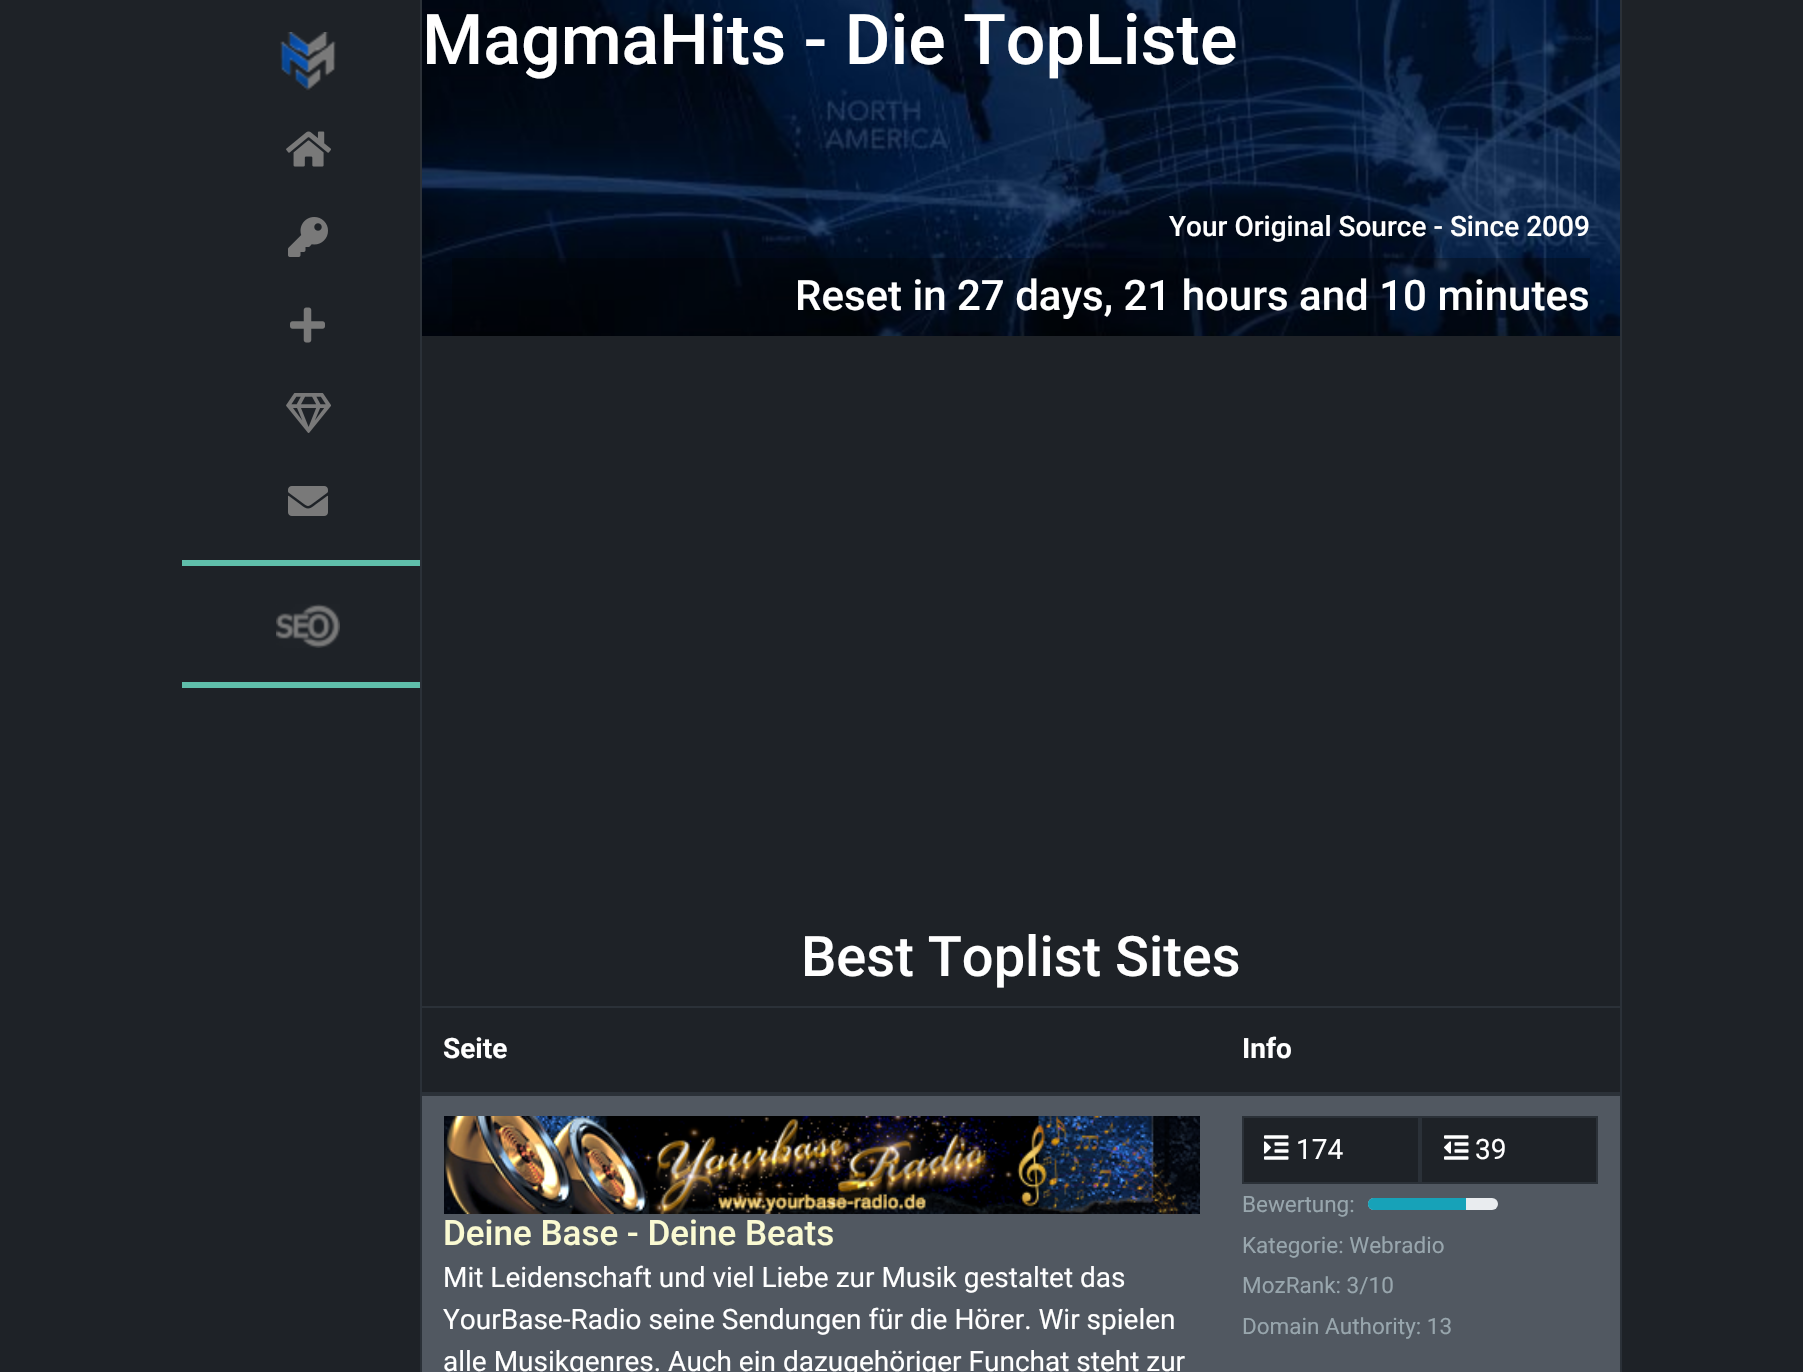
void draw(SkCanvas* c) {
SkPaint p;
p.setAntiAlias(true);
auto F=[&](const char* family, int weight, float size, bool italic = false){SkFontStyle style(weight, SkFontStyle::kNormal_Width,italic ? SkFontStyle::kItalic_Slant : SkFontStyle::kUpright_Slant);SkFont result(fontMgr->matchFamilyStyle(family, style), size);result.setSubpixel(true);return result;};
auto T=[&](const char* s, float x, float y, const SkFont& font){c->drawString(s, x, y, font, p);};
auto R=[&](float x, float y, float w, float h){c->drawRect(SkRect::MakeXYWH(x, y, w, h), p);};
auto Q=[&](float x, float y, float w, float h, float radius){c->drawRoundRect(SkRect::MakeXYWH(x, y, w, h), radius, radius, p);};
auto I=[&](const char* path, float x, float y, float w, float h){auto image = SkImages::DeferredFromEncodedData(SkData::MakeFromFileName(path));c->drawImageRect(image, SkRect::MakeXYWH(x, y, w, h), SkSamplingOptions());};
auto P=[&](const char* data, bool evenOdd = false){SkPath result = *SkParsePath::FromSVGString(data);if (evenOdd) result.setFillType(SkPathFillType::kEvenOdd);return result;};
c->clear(0xff1e2227);
p.setColor(0xff2b3138);
R(420,0,2,1372);
p.setColor(0xff5fbeaa);
R(182,560,238,6);
I("1.png",280,32,56,60);
I("2.png",286,131,45,36);
I("3.png",288,217,40,40);
I("4.png",290,307,35,36);
I("5.png",286,393,45,40);
I("6.png",288,486,40,30);
R(182,682,238,6);
I("7.png",276,604,64,44);
p.setColor(0xff2b3138);
R(1620,0,2,1372);
I("8.png",422,0,1198,336);
auto f1 = F("Roboto",500,70);
p.setColor(0xffffffff);
T("MagmaHits - Die TopListe",422,64,f1);
auto f2 = F("Roboto",500,28);
T("Your Original Source - Since 2009",1169,236,f2);
p.setColor(0x4d000000);
R(452,258,1138,78);
auto f3 = F("Roboto",500,42);
p.setColor(0xffffffff);
T("Reset in 27 days, 21 hours and 10 minutes",795,310,f3);
auto f4 = F("Roboto",500,56);
T("Best Toplist Sites",801,976,f4);
p.setColor(0xff2b3138);
R(422,1006,1198,2);
R(422,1092,1198,4);
auto f5 = F("Roboto",700,28);
p.setColor(0xffffffff);
T("Seite",443,1058,f5);
T("Info",1242,1058,f5);
p.setColor(0xff515861);
R(422,1096,1198,276);
I("9.png",444,1116,756,98);
auto f6 = F("Roboto",500,35);
p.setColor(0xfffafad2);
T("Deine Base - Deine Beats",443,1245,f6);
auto f7 = F("Roboto",400,28);
p.setColor(0xffffffff);
T("Mit Leidenschaft und viel Liebe zur Musik gestaltet das",443,1287,f7);
T("YourBase-Radio seine Sendungen für die Hörer. Wir spielen",443,1329,f7);
T("alle Musikgenres. Auch ein dazugehöriger Funchat steht zur",443,1371,f7);
p.setColor(0xff1e2227);
c->drawRect(SkRect::MakeXYWH(1243,1117,176,66),p);
p.setStroke(true);
p.setStrokeWidth(2);
p.setColor(0xff2b3138);
c->drawRect(SkRect::MakeXYWH(1243,1117,176,66),p);
I("10.png",1264,1135,25,25);
p.setStroke(false);
p.setColor(0xffffffff);
T("174",1296,1159,f7);
p.setColor(0xff1e2227);
c->drawRect(SkRect::MakeXYWH(1421,1117,176,66),p);
p.setStroke(true);
p.setColor(0xff2b3138);
c->drawRect(SkRect::MakeXYWH(1421,1117,176,66),p);
I("11.png",1444,1135,25,25);
p.setStroke(false);
p.setColor(0xffffffff);
T("39",1475,1159,f7);
auto f8 = F("Roboto",400,22.5);
p.setColor(0xff98a6ad);
T("Bewertung:",1242,1212,f8);
p.setColor(0xffe9ecef);
Q(1368,1198,130,12,6);
p.setColor(0xff17a2b8);
c->drawPath(P("M1374 1198h92v12h-92c-3.5 0-6-2.5-6-6c0-3.5 2.5-6 6-6z"),p);
p.setColor(0xff98a6ad);
T("Kategorie: Webradio",1242,1253,f8);
T("MozRank: 3/10",1242,1293,f8);
T("Domain Authority: 13",1242,1334,f8);
}
